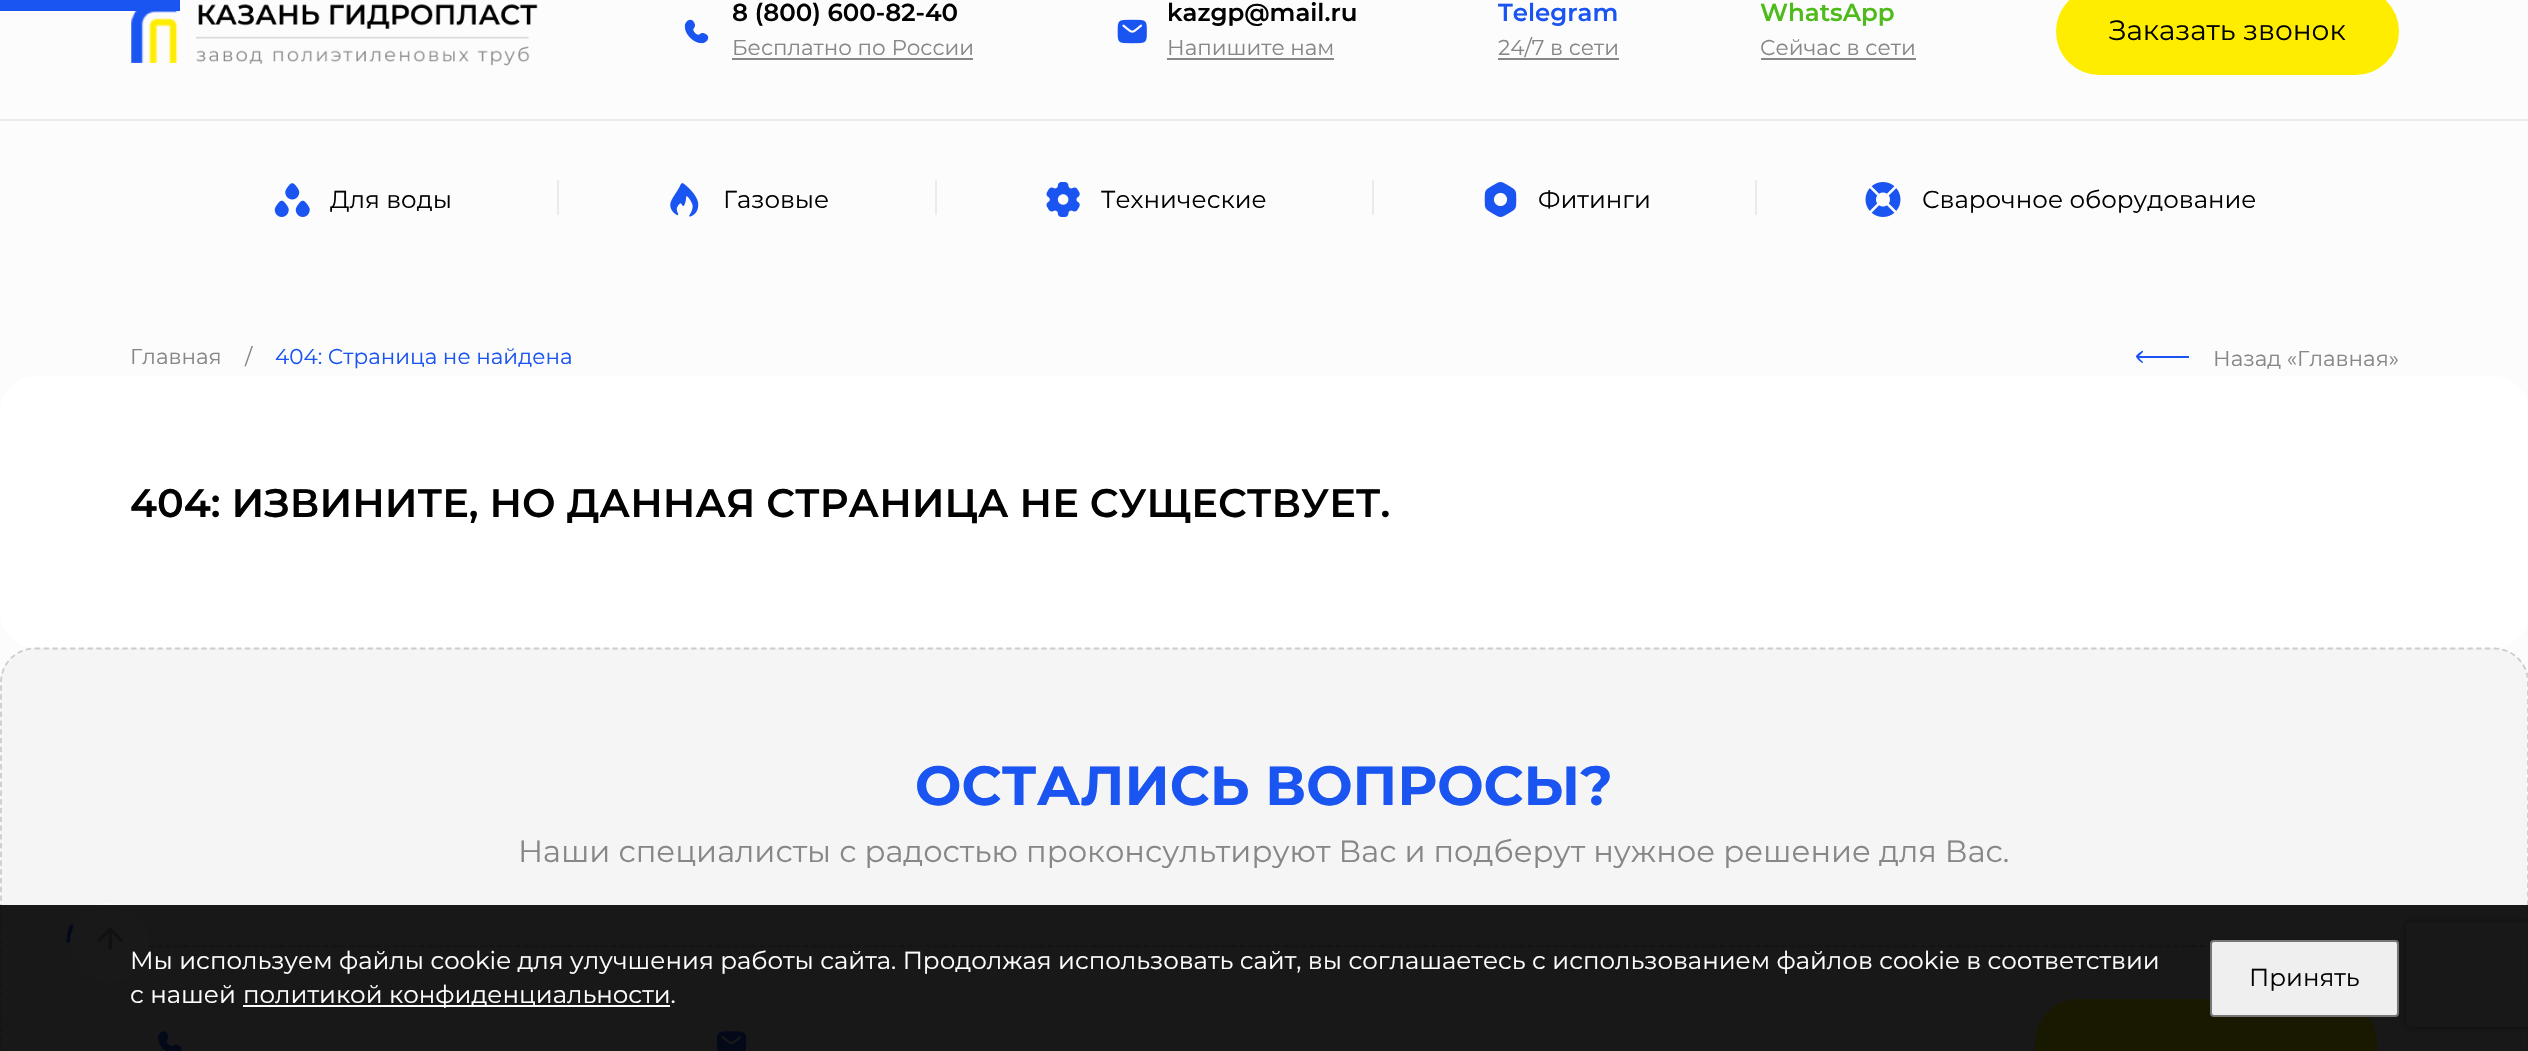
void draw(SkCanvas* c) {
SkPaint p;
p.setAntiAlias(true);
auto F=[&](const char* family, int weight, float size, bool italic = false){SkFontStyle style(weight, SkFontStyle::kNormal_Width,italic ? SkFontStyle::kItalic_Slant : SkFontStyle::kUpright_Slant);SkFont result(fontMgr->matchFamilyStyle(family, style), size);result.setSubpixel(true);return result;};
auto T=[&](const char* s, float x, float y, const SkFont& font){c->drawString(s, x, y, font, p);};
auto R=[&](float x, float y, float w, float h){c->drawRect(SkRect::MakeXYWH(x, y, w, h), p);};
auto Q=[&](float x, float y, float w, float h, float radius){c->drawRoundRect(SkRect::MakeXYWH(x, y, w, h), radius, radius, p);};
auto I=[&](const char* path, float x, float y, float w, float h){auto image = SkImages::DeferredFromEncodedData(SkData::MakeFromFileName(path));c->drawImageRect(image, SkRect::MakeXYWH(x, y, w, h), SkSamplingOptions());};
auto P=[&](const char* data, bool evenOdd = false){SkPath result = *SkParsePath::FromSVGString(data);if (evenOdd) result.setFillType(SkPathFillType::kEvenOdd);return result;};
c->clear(0xfffcfcfc);
I("1.png",131,4,407,62);
p.setColor(0xff1a54f1);
R(0,0,180,11);
I("2.png",684,19,25,25);
auto f1 = F("Montserrat",600,24.5);
p.setColor(0xff020202);
T("8 (800) 600-82-40",732,21,f1);
auto f2 = F("Montserrat",400,21.5);
p.setColor(0xff878787);
T("Бесплатно по России",732,55,f2);
R(732,58,241,2);
I("3.png",1117,19,30,25);
p.setColor(0xff020202);
T("kazgp@mail.ru",1167,21,f1);
p.setColor(0xff878787);
T("Напишите нам",1167,55,f2);
R(1167,58,167,2);
p.setColor(0xff1a54f1);
T("Telegram",1498,21,f1);
p.setColor(0xff878787);
T("24/7 в сети",1498,55,f2);
R(1498,58,121,2);
p.setColor(0xff4ebb1b);
T("WhatsApp",1760,21,f1);
p.setColor(0xff878787);
T("Сейчас в сети",1760,55,f2);
R(1761,58,155,2);
p.setColor(0xffffed00);
Q(2056,-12,343,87,43.5);
auto f3 = F("Montserrat",400,28);
p.setColor(0xff020202);
T("Заказать звонок",2109,40,f3);
p.setColor(0xffebebeb);
R(0,119,2528,2);
I("4.png",274,183,36,34);
auto f4 = F("Montserrat",400,24.5);
p.setColor(0xff020202);
T("Для воды",330,208,f4);
p.setColor(0xffebebeb);
R(557,180,2,35);
I("5.png",670,183,29,34);
p.setColor(0xff020202);
T("Газовые",723,208,f4);
p.setColor(0xffebebeb);
R(935,180,2,35);
I("6.png",1046,182,34,35);
p.setColor(0xff020202);
T("Технические",1101,208,f4);
p.setColor(0xffebebeb);
R(1372,180,2,35);
I("7.png",1484,182,33,35);
p.setColor(0xff020202);
T("Фитинги",1538,208,f4);
p.setColor(0xffebebeb);
R(1755,180,2,35);
I("8.png",1865,182,36,35);
p.setColor(0xff020202);
T("Сварочное оборудование",1922,208,f4);
p.setColor(0xff878787);
T("Главная",130,364,f2);
T("/",245,364,f2);
p.setColor(0xff1a54f1);
T("404: Страница не найдена",275,364,f2);
p.setColor(0xff878787);
T("Назад «Главная»",2213,366,f2);
p.setColor(0xff1a54f1);
c->drawPath(P("M2136 356c-1 1 6 8 7 7v-1l-5-5l5-5v-1c-1-1-6 4-7 5zm53 0h-52v2h52z"),p);
p.setColor(0xffffffff);
Q(0,376,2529,272,35);
auto f5 = F("Montserrat",600,39.8);
p.setColor(0xff020202);
T("404: ИЗВИНИТЕ, НО ДАННАЯ СТРАНИЦА НЕ СУЩЕСТВУЕТ.",130,517,f5);
p.setColor(0xfff5f5f5);
Q(0,648,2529,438,35);
p.setStroke(true);
p.setStrokeWidth(1.8);
p.setColor(0xffcccccc);
p.setPathEffect(SkDashPathEffect::Make({{5.25f,3.5f}}, 0));
c->drawPath(P("M35 648.5h2459c18.5 0 34 15 34 34v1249.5c0 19-15.5 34-34 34h-2459c-19 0-34-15-34-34v-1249.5c0-19 15-34 34-34z"),p);
p.setPathEffect(nullptr);
auto f6 = F("Montserrat",700,55.1);
p.setStroke(false);
p.setColor(0xff1a54f1);
T("ОСТАЛИСЬ ВОПРОСЫ?",915,805,f6);
auto f7 = F("Montserrat",400,30.6);
p.setColor(0xff878787);
T("Наши специалисты с радостью проконсультируют Вас и подберут нужное решение для Вас.",518,862,f7);
p.setStroke(true);
p.setColor(0xffcccccc);
p.setPathEffect(SkDashPathEffect::Make({{5.25f,3.48f}}, 0));
c->drawPath(P("M131 946h2268"),p);
p.setPathEffect(nullptr);
I("9.png",158,1031,24,20);
I("10.png",716,1031,31,20);
p.setStroke(false);
p.setColor(0xffffed00);
Q(2035,999,342,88,44);
c->save();
c->clipPath(P("M66.5 942.5c0-24 19-43 43-43c23.5 0 42.5 19 42.5 43c0 23.5-19 42.5-42.5 42.5c-24 0-43-19-43-42.5z"),true);
p.setStroke(true);
p.setStrokeWidth(13.4);
p.setColor(0xff1a54f1);
c->drawPath(P("M66.5 942.5c0-6.5 1.5-13 4-18.5"),p);
c->restore();
p.setStroke(false);
p.setColor(0xfffafafa);
c->drawCircle(109.5,942.5,39.5,p);
I("11.png",97,928,27,22);
c->save();
c->clipPath(P("M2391 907h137v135h-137zm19 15h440c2 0 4 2 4 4v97c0 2-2 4-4 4h-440c-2 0-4-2-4-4v-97c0-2 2-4 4-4z",true),true);
p.setColor(0xff808080);
p.setMaskFilter(SkMaskFilter::MakeBlur(kNormal_SkBlurStyle, 4.5));
c->drawRoundRect(SkRect::MakeXYWH(2406,922,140,105),4,4,p);
p.setMaskFilter(nullptr);
c->restore();
p.setColor(0xe6000000);
R(0,905,2528,146);
p.setColor(0xffffffff);
T("Мы используем файлы cookie для улучшения работы сайта. Продолжая использовать сайт, вы соглашаетесь с использованием файлов cookie в соответствии",130,969,f4);
T("с нашей",130,1003,f4);
R(243,1005,427,2);
T("политикой конфиденциальности.",243,1003,f4);
p.setColor(0xffefefef);
c->drawRoundRect(SkRect::MakeXYWH(2211,941,187,75),3,3,p);
p.setStroke(true);
p.setStrokeWidth(2);
p.setColor(0xff767676);
c->drawRoundRect(SkRect::MakeXYWH(2211,941,187,75),3,3,p);
p.setStroke(false);
p.setColor(0xff020202);
T("Принять",2249,986,f4);
}
